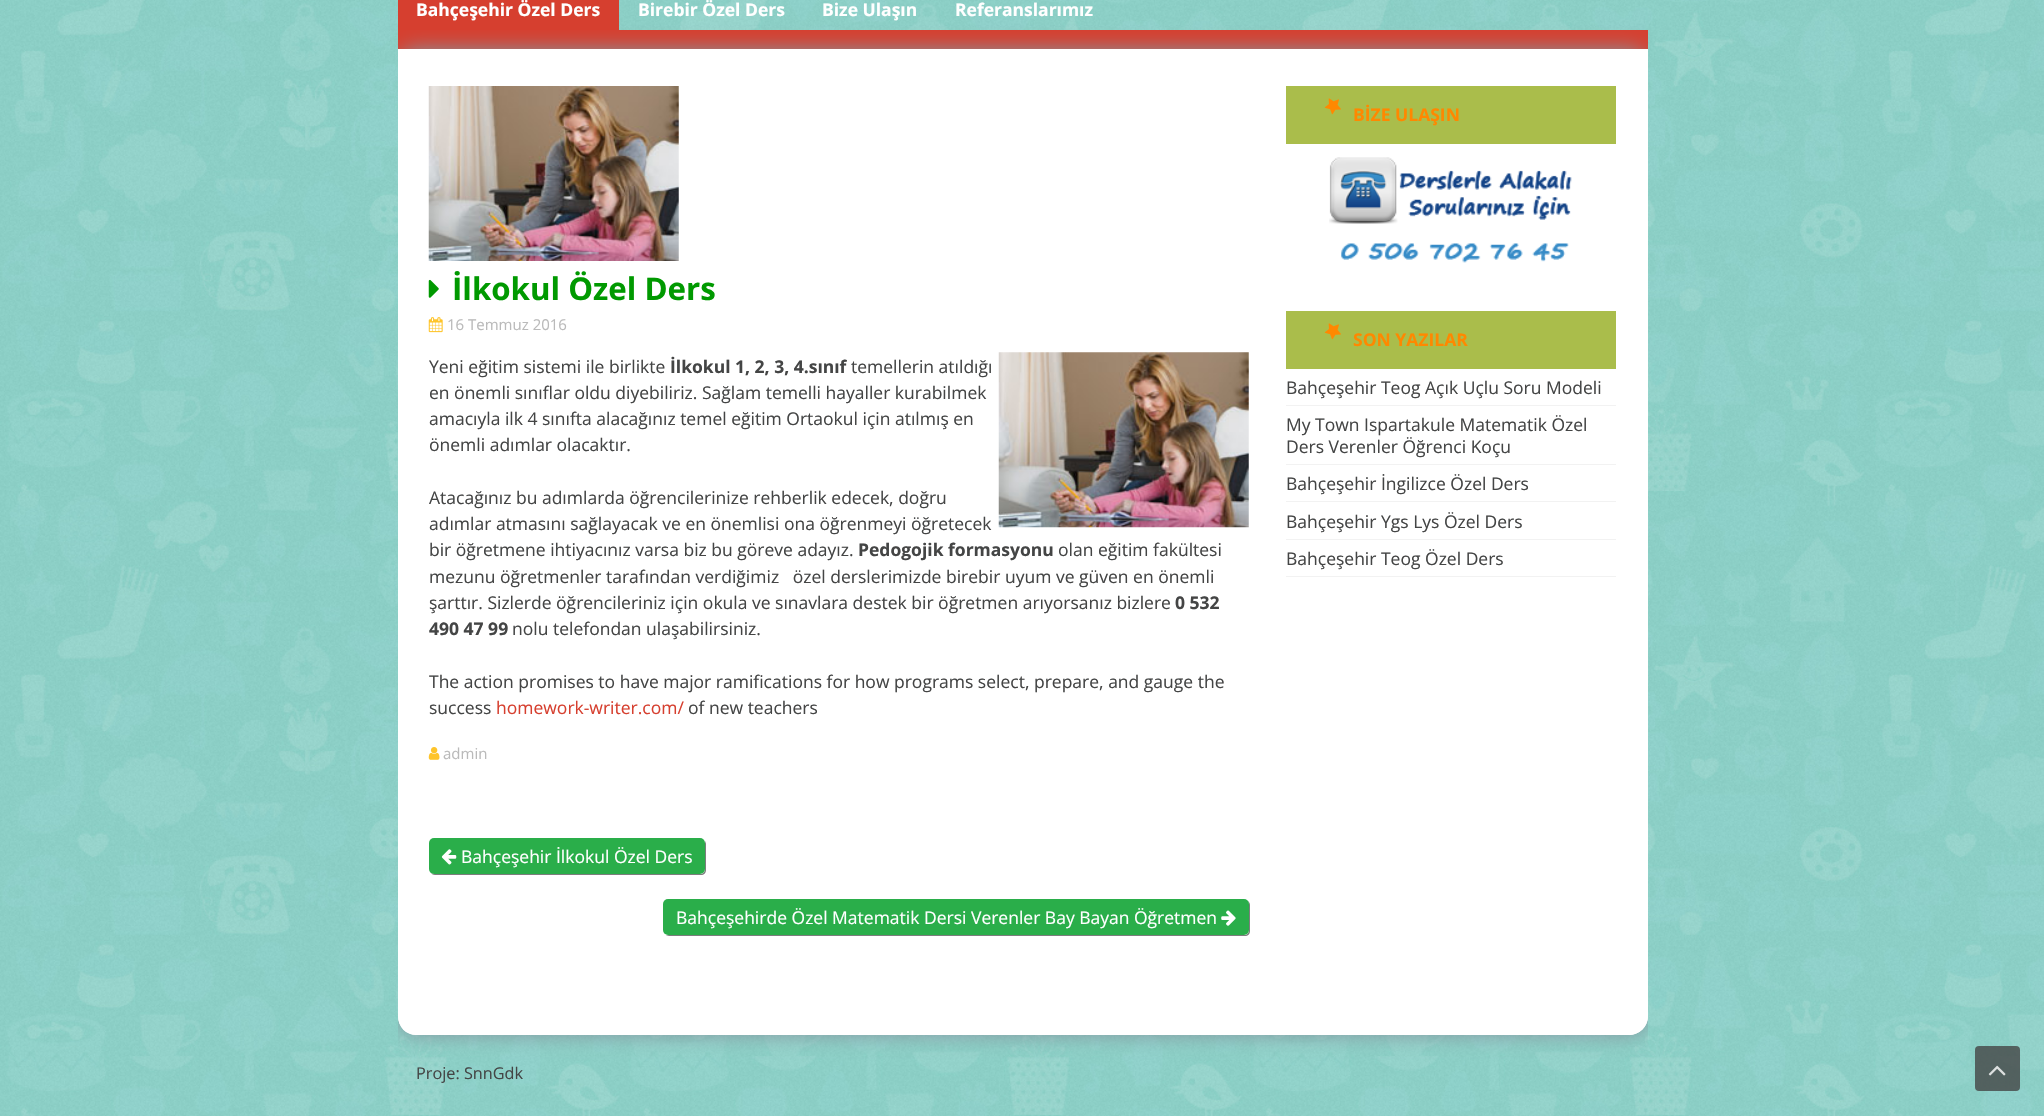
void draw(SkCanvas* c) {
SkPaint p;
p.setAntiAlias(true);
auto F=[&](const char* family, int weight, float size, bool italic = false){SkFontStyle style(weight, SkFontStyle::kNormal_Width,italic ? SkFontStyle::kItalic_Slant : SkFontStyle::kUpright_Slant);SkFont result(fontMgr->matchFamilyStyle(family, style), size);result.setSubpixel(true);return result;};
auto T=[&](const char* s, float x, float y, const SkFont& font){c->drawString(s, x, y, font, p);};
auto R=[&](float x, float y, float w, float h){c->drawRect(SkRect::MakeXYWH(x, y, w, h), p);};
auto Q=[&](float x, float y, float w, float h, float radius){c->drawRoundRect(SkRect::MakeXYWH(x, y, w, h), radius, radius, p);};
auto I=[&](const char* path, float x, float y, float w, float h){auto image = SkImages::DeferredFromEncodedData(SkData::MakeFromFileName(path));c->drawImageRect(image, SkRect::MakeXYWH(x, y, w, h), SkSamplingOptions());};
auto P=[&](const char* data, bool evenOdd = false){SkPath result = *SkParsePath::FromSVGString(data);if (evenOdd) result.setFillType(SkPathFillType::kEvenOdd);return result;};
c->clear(0xffffffff);
I("1.png",0,0,2044,1116);
p.setColor(0xffd63f2f);
R(398,30,1250,19);
c->save();
c->clipRect(SkRect::MakeXYWH(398,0,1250,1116));
p.setColor(0xff85969f);
p.setMaskFilter(SkMaskFilter::MakeBlur(kNormal_SkBlurStyle, 10));
c->drawRoundRect(SkRect::MakeXYWH(398,49,1250,986),19,19,p);
p.setMaskFilter(nullptr);
c->restore();
p.setColor(0xffd63f2f);
R(398,0,221,30);
auto f1 = F("Open Sans",700,17.5);
p.setColor(0xffffffff);
T("Bahçeşehir Özel Ders",416,16,f1);
T("Birebir Özel Ders",638,16,f1);
T("Bize Ulaşın",822,16,f1);
T("Referanslarımız",955,16,f1);
c->drawPath(P("M398 49h1250v967c0 10.5-8.5 19-19 19h-1212c-10.5 0-19-8.5-19-19z"),p);
c->drawPath(P("M398 49h1250v967c0 11-9 19-19 19h-1213c-10 0-18-8-18-19zm12 0h1225v967c0 4-3 6-6 6h-1213c-3 0-6-2-6-6z",true),p);
I("2.png",428,86,251,175);
I("3.png",428,279,11,19);
auto f2 = F("Open Sans",700,31.25);
p.setColor(0xff009900);
T("İlkokul Özel Ders",452,300,f2);
I("4.png",428,317,15,16);
auto f3 = F("Open Sans",400,15);
p.setColor(0xffbababa);
T("16 Temmuz 2016",447,330,f3);
auto f4 = F("Open Sans",400,17.5);
p.setColor(0xff444545);
T("Yeni eğitim sistemi ile birlikte",429,373,f4);
T("İlkokul 1, 2, 3, 4.sınıf",670,373,f1);
T("temellerin atıldığı",851,373,f4);
I("5.png",998,352,251,176);
T("en önemli sınıflar oldu diyebiliriz. Sağlam temelli hayaller kurabilmek",429,399,f4);
T("amacıyla ilk 4 sınıfta alacağınız temel eğitim Ortaokul için atılmış en",429,425,f4);
T("önemli adımlar olacaktır.",429,451,f4);
T("Atacağınız bu adımlarda öğrencilerinize rehberlik edecek, doğru",429,504,f4);
T("adımlar atmasını sağlayacak ve en önemlisi ona öğrenmeyi öğretecek",429,530,f4);
T("bir öğretmene ihtiyacınız varsa biz bu göreve adayız.",429,556,f4);
T("Pedogojik formasyonu",858,556,f1);
T("olan eğitim fakültesi",1058,556,f4);
T("mezunu öğretmenler tarafından verdiğimiz   özel derslerimizde birebir uyum ve güven en önemli",429,583,f4);
T("şarttır. Sizlerde öğrencileriniz için okula ve sınavlara destek bir öğretmen arıyorsanız bizlere",429,609,f4);
T("0 532",1175,609,f1);
T("490 47 99",429,635,f1);
T("nolu telefondan ulaşabilirsiniz.",512,635,f4);
T("The action promises to have major ramifications for how programs select, prepare, and gauge the",429,688,f4);
T("success",429,714,f4);
p.setColor(0xffd63f2f);
T("homework-writer.com/",496,714,f4);
p.setColor(0xff444545);
T("of new teachers",688,714,f4);
I("6.png",428,747,12,13);
p.setColor(0xffbababa);
T("admin",443,759,f3);
p.setColor(0xff7d7d7d);
c->drawPath(P("M431 873c1 1 2 2 4 2h266c3 0 5-2 5-5v-26c0-1-1-3-1-3v1v27c0 3-2 5-5 5h-266z"),p);
p.setColor(0xff2aae4a);
Q(429,838,276,36,5);
I("7.png",441,849,16,16);
p.setColor(0xffffffff);
T("Bahçeşehir İlkokul Özel Ders",461,863,f4);
p.setColor(0xff7d7d7d);
c->drawPath(P("M666 935c0 0 2 1 3 1h576c3 0 5-2 5-5v-26c0-2-1-3-2-4l1 3v26c0 3-2 5-5 5h-576z"),p);
p.setColor(0xff2aae4a);
Q(663,899,586,36,5);
p.setColor(0xffffffff);
T("Bahçeşehirde Özel Matematik Dersi Verenler Bay Bayan Öğretmen",676,924,f4);
I("8.png",1221,910,15,16);
p.setColor(0xffaabd4b);
R(1286,86,330,58);
I("9.png",1324,98,17,17);
p.setColor(0xffff8800);
T("BİZE ULAŞIN",1353,121,f1);
I("10.png",1329,157,243,106);
p.setColor(0xffaabd4b);
R(1286,311,330,58);
I("9.png",1324,323,17,17);
p.setColor(0xffff8800);
T("SON YAZILAR",1353,346,f1);
p.setColor(0xfff2f2f2);
R(1286,405,330,1);
p.setColor(0xff444545);
T("Bahçeşehir Teog Açık Uçlu Soru Modeli",1286,394,f4);
p.setColor(0xfff2f2f2);
R(1286,464,330,1);
p.setColor(0xff444545);
T("My Town Ispartakule Matematik Özel",1286,431,f4);
T("Ders Verenler Öğrenci Koçu",1286,453,f4);
p.setColor(0xfff2f2f2);
R(1286,501,330,1);
p.setColor(0xff444545);
T("Bahçeşehir İngilizce Özel Ders",1286,490,f4);
p.setColor(0xfff2f2f2);
R(1286,539,330,1);
p.setColor(0xff444545);
T("Bahçeşehir Ygs Lys Özel Ders",1286,528,f4);
p.setColor(0xfff2f2f2);
R(1286,576,330,1);
p.setColor(0xff444545);
T("Bahçeşehir Teog Özel Ders",1286,565,f4);
auto f5 = F("Open Sans",400,16.25);
T("Proje: SnnGdk",416,1079,f5);
p.setColor(0xcc444545);
Q(1975,1046,45,45,4);
I("11.png",1988,1065,18,11);
}
